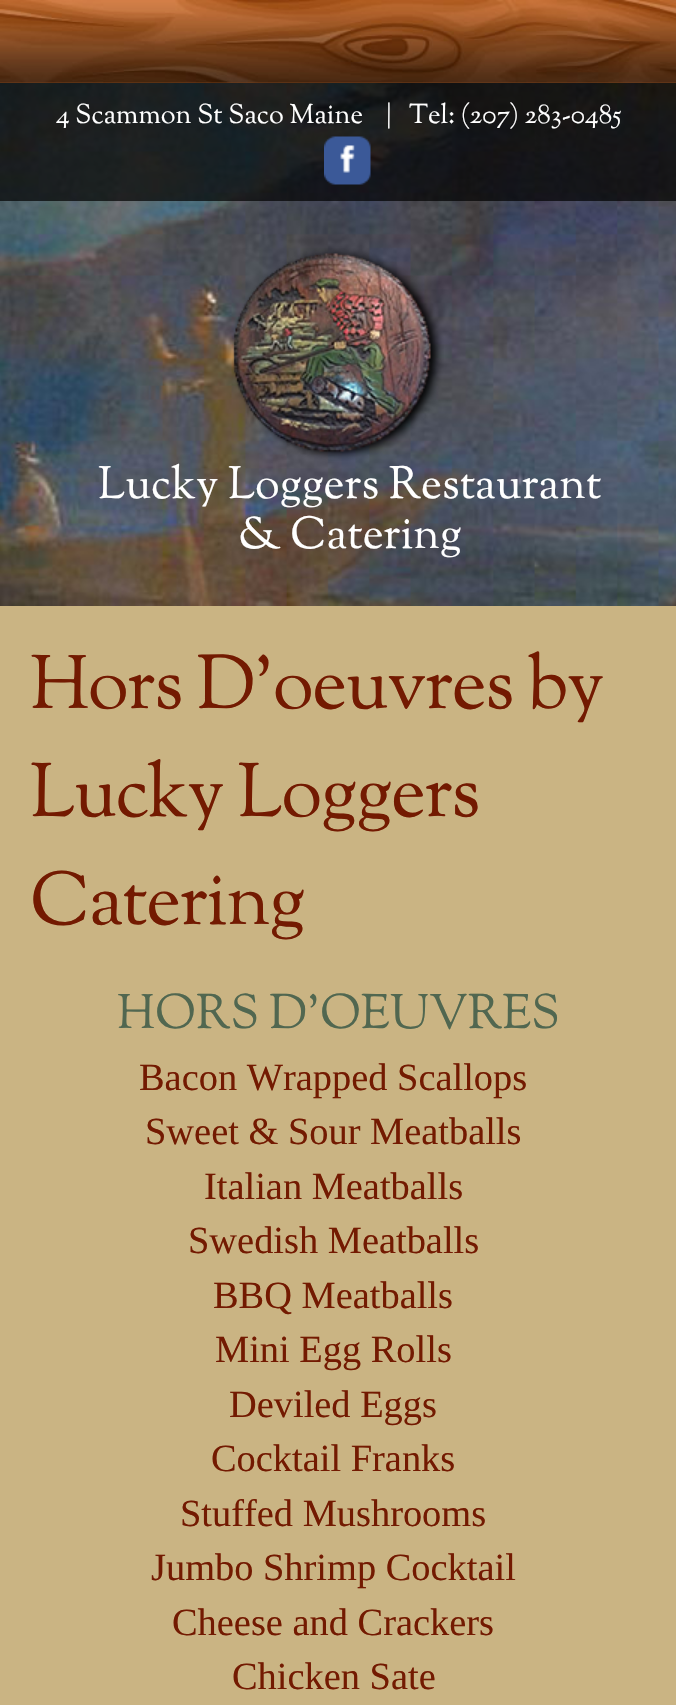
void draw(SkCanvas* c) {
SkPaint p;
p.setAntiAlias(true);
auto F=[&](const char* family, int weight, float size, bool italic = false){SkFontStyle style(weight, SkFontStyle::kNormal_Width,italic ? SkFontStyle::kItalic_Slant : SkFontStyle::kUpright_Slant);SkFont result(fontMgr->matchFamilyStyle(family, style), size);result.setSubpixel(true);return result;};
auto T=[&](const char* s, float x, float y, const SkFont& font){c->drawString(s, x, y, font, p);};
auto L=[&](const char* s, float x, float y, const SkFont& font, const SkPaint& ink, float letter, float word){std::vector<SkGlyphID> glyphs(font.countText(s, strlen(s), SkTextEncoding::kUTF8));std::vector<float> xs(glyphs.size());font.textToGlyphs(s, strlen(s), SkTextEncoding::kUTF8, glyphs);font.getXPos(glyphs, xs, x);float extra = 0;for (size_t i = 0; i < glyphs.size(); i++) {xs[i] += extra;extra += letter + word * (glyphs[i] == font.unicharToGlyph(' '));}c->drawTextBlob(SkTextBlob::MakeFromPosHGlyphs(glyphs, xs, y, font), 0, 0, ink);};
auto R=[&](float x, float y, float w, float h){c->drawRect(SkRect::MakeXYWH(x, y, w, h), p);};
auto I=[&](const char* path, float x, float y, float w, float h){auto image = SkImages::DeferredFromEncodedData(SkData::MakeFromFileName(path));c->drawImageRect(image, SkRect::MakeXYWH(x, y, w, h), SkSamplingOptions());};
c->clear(0xffffffff);
p.setColor(0xff723e1a);
R(0,82,676,1);
I("1.png",0,0,676,83);
I("2.png",0,83,676,523);
p.setColor(0xb3000000);
R(0,83,676,118);
auto f1 = F("Sorts Mill Goudy",400,27);
p.setColor(0xffffffff);
T("4 Scammon St Saco Maine    |   Tel: (207) 283-0485",56,123,f1);
I("3.png",324,136,47,49);
I("4.png",232,248,212,213);
auto f2 = F("Sorts Mill Goudy",400,45);
T("Lucky Loggers Restaurant",98,498,f2);
T("& Catering",238,548,f2);
p.setColor(0xffcab483);
R(0,606,676,1099);
auto f3 = F("Sorts Mill Goudy",400,75);
p.setColor(0xff731a01);
L("Hors D'oeuvres by",30,708,f3,p,-1.5,0);
L("Lucky Loggers",30,816,f3,p,-1.5,0);
L("Catering",30,924,f3,p,-1.5,0);
auto f4 = F("Sorts Mill Goudy",400,48);
p.setColor(0xff516750);
T("HORS D’OEUVRES",117,1028,f4);
auto f5 = F("Liberation Serif",400,38.4);
p.setColor(0xff731a01);
T("Bacon Wrapped Scallops",139,1090,f5);
T("Sweet & Sour Meatballs",145,1144,f5);
T("Italian Meatballs",204,1199,f5);
T("Swedish Meatballs",188,1253,f5);
T("BBQ Meatballs",213,1308,f5);
T("Mini Egg Rolls",215,1362,f5);
T("Deviled Eggs",229,1417,f5);
T("Cocktail Franks",211,1471,f5);
T("Stuffed Mushrooms",180,1526,f5);
T("Jumbo Shrimp Cocktail",151,1580,f5);
T("Cheese and Crackers",172,1635,f5);
T("Chicken Sate",232,1689,f5);
}
